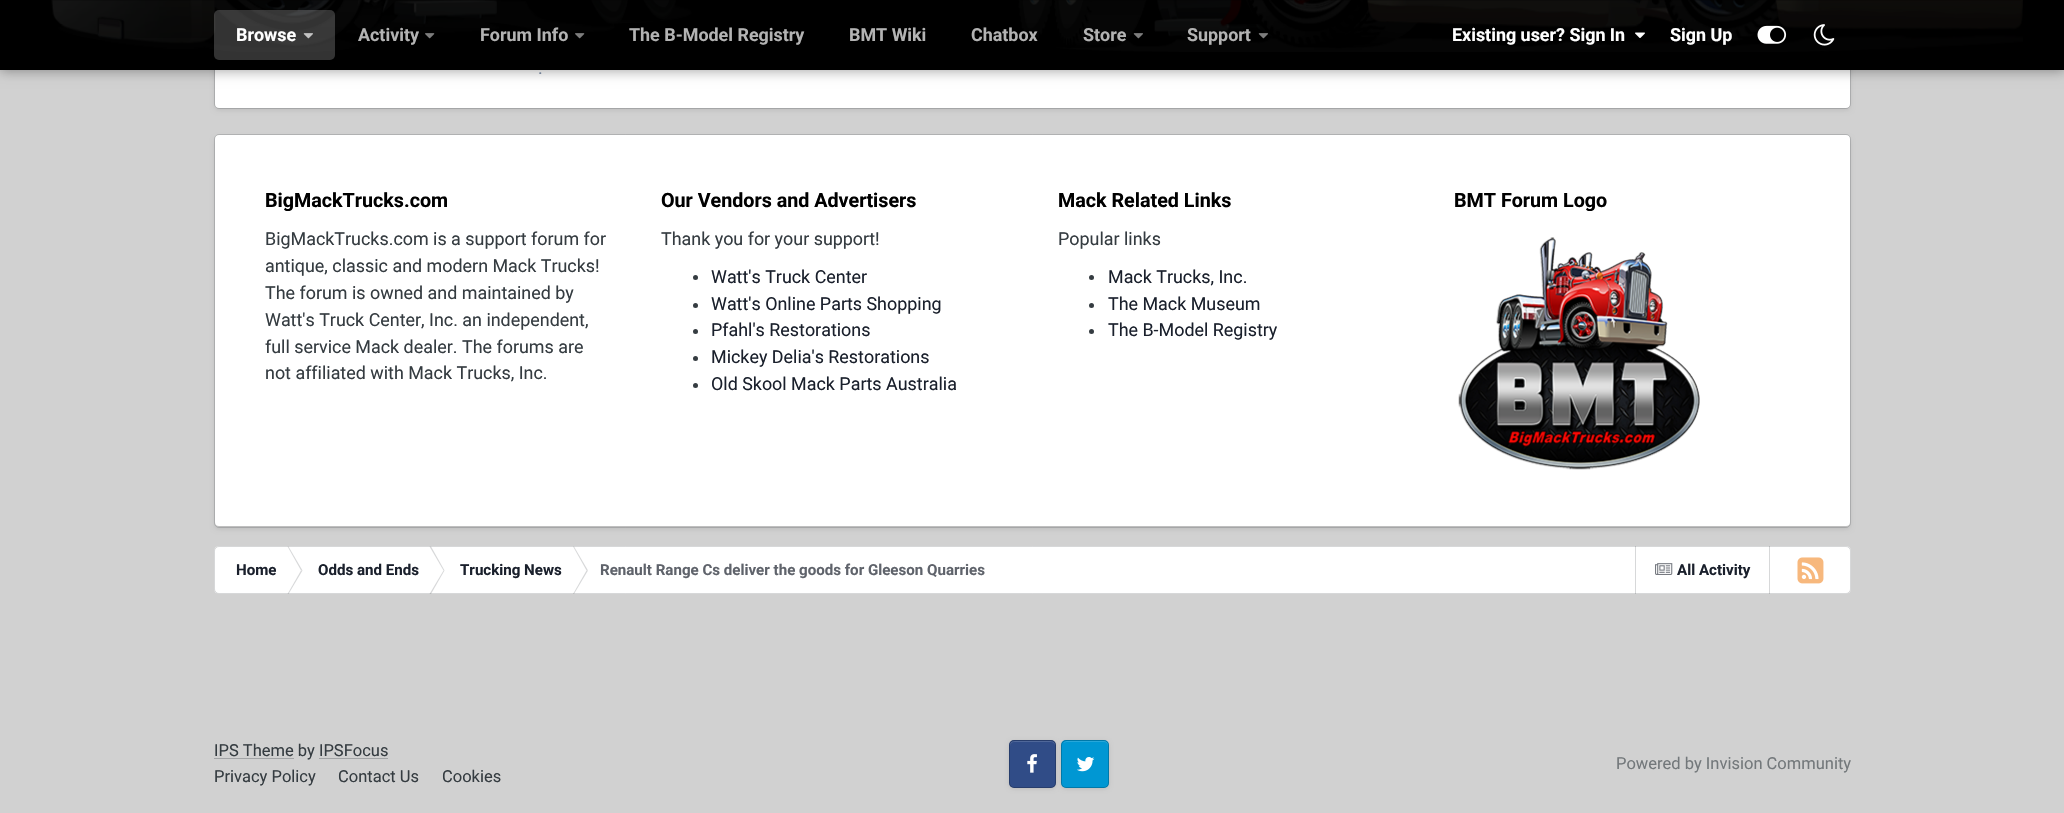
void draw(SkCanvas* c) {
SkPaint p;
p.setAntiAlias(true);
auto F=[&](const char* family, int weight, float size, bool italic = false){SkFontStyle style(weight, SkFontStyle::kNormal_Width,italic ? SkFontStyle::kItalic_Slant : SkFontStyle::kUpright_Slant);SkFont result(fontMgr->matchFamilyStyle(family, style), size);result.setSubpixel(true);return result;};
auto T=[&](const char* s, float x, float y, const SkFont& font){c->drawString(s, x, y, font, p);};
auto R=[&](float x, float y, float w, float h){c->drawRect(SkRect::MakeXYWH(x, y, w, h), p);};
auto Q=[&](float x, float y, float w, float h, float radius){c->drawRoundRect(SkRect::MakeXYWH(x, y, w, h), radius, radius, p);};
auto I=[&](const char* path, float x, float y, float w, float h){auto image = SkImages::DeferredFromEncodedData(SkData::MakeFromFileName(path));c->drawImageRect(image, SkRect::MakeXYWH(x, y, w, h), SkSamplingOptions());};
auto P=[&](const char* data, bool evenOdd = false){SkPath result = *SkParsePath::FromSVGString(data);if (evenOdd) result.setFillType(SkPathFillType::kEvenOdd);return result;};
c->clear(0xffd1d1d1);
p.setColor(0x1a000000);
p.setMaskFilter(SkMaskFilter::MakeBlur(kNormal_SkBlurStyle, 2.5));
c->drawRoundRect(SkRect::MakeXYWH(215,-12,1635,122),4,4,p);
p.setMaskFilter(nullptr);
p.setColor(0xffffffff);
Q(215,-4,1635,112,4);
p.setStroke(true);
p.setStrokeWidth(1);
p.setColor(0x33353c41);
c->drawRoundRect(SkRect::MakeXYWH(214.5,-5.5,1636,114),4.5,4.5,p);
p.setStroke(false);
p.setColor(0x59000000);
p.setMaskFilter(SkMaskFilter::MakeBlur(kNormal_SkBlurStyle, 6));
c->drawRect(SkRect::MakeXYWH(0,-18,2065,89),p);
p.setMaskFilter(nullptr);
p.setColor(0xff000000);
R(0,0,2064,70);
I("1.png",51,0,1972,52);
p.setColor(0x33000000);
R(52,0,1971,38);
R(52,0,1969,1);
p.setColor(0x33ffffff);
Q(214,10,121,50,5);
auto f1 = F("Roboto",700,17.9);
p.setColor(0xffffffff);
T("Browse",236,41,f1);
I("2.png",303,33,10,6);
p.setColor(0xffb3b3b3);
T("Activity",358,41,f1);
I("3.png",425,33,10,6);
T("Forum Info",480,41,f1);
I("4.png",575,33,10,6);
T("The B-Model Registry",629,41,f1);
T("BMT Wiki",849,41,f1);
T("Chatbox",971,41,f1);
T("Store",1083,41,f1);
I("5.png",1133,33,10,6);
T("Support",1187,41,f1);
I("6.png",1258,33,10,6);
p.setColor(0xffffffff);
T("Existing user? Sign In",1452,41,f1);
I("7.png",1635,32,10,6);
T("Sign Up",1670,41,f1);
I("8.png",1757,25,30,19);
I("9.png",1813,24,22,22);
auto f2 = F("Roboto",400,17.9);
p.setColor(0xff718096);
T(".",538,74,f2);
p.setColor(0x1a000000);
p.setMaskFilter(SkMaskFilter::MakeBlur(kNormal_SkBlurStyle, 2.5));
c->drawRoundRect(SkRect::MakeXYWH(215,138,1635,391),4,4,p);
p.setMaskFilter(nullptr);
p.setColor(0xffffffff);
Q(215,135,1635,391,4);
p.setStroke(true);
p.setColor(0x33353c41);
c->drawRoundRect(SkRect::MakeXYWH(214.5,134.5,1636,393),4.5,4.5,p);
auto f3 = F("Roboto",700,19.7);
p.setStroke(false);
p.setColor(0xff000000);
T("BigMackTrucks.com",265,207,f3);
p.setColor(0xff353c41);
T("BigMackTrucks.com is a support forum for",265,245,f2);
T("antique, classic and modern Mack Trucks!",265,272,f2);
T("The forum is owned and maintained by",265,299,f2);
T("Watt's Truck Center, Inc. an independent,",265,326,f2);
T("full service Mack dealer. The forums are",265,353,f2);
T("not affiliated with Mack Trucks, Inc.",265,379,f2);
p.setColor(0xff000000);
T("Our Vendors and Advertisers",661,207,f3);
p.setColor(0xff353c41);
T("Thank you for your support!",661,245,f2);
c->drawCircle(695.5,277.5,2.5,p);
p.setColor(0xff1a202c);
T("Watt's Truck Center",711,283,f2);
p.setColor(0xff353c41);
c->drawCircle(695.5,305.5,2.5,p);
p.setColor(0xff1a202c);
T("Watt's Online Parts Shopping",711,310,f2);
p.setColor(0xff353c41);
c->drawCircle(695.5,331.5,2.5,p);
p.setColor(0xff1a202c);
T("Pfahl's Restorations",711,336,f2);
p.setColor(0xff353c41);
c->drawCircle(695.5,358.5,2.5,p);
p.setColor(0xff1a202c);
T("Mickey Delia's Restorations",711,363,f2);
p.setColor(0xff353c41);
c->drawCircle(695.5,385.5,2.5,p);
p.setColor(0xff1a202c);
T("Old Skool Mack Parts Australia",711,390,f2);
p.setColor(0xff000000);
T("Mack Related Links",1058,207,f3);
p.setColor(0xff353c41);
T("Popular links",1058,245,f2);
c->drawCircle(1091.5,277.5,2.5,p);
p.setColor(0xff1a202c);
T("Mack Trucks, Inc.",1108,283,f2);
p.setColor(0xff353c41);
c->drawCircle(1091.5,305.5,2.5,p);
p.setColor(0xff1a202c);
T("The Mack Museum",1108,310,f2);
p.setColor(0xff353c41);
c->drawCircle(1091.5,331.5,2.5,p);
p.setColor(0xff1a202c);
T("The B-Model Registry",1108,336,f2);
p.setColor(0xff000000);
T("BMT Forum Logo",1454,207,f3);
I("10.png",1458,237,242,233);
p.setColor(0xffffffff);
Q(214,546,1637,48,5);
p.setColor(0xffd7d8d9);
c->drawPath(P("M287.5 546.5h1l14 24h-1.5z"),p);
c->drawPath(P("M287.5 594h1l14-23.5h-1.5z"),p);
c->drawPath(P("M429.5 546.5h1.5l13.5 24h-1z"),p);
c->drawPath(P("M429.5 594h1.5l13.5-23.5h-1z"),p);
c->drawPath(P("M573 546.5h1l14 24h-1.5z"),p);
c->drawPath(P("M573 594h1l14-23.5h-1.5z"),p);
R(1635,546,1,48);
I("11.png",1655,563,18,12);
R(1769,546,1,48);
I("12.png",1797,557,27,27);
p.setStroke(true);
p.setColor(0x33353c41);
c->drawRoundRect(SkRect::MakeXYWH(214.5,546.5,1636,47),4.5,4.5,p);
auto f4 = F("Roboto",700,15.1);
p.setStroke(false);
p.setColor(0xff1a202c);
T("Home",236,575,f4);
T("Odds and Ends",318,575,f4);
T("Trucking News",460,575,f4);
p.setColor(0xff5f636b);
T("Renault Range Cs deliver the goods for Gleeson Quarries",600,575,f4);
p.setColor(0xff1a202c);
T("All Activity",1677,575,f4);
p.setColor(0xffa2a4a6);
R(214,758,80,1);
auto f5 = F("Roboto",400,16.5);
p.setColor(0xff353c41);
T("IPS Theme by IPSFocus",214,756,f5);
p.setColor(0xffa2a4a6);
R(319,758,69,1);
p.setColor(0xff353c41);
T("Privacy Policy",214,782,f5);
T("Contact Us",338,782,f5);
T("Cookies",442,782,f5);
p.setColor(0x1a000000);
p.setMaskFilter(SkMaskFilter::MakeBlur(kNormal_SkBlurStyle, 2));
c->drawRoundRect(SkRect::MakeXYWH(1009,741,47,48),5,5,p);
p.setMaskFilter(nullptr);
p.setColor(0xff304c87);
Q(1009,740,47,48,5);
p.setColor(0xff4f6799);
c->drawPath(P("M1014 742c-2 0-4 2-4 4c0-6 5-5 10-5h25c5 0 10-1 10 5c0-2-2-4-4-4z"),p);
I("13.png",1027,754,10,19);
p.setStroke(true);
p.setColor(0x33000000);
c->drawRoundRect(SkRect::MakeXYWH(1009.5,740.5,46,47),4.5,4.5,p);
p.setStroke(false);
p.setColor(0x1a000000);
p.setMaskFilter(SkMaskFilter::MakeBlur(kNormal_SkBlurStyle, 2));
c->drawRoundRect(SkRect::MakeXYWH(1061,741,48,48),5,5,p);
p.setMaskFilter(nullptr);
p.setColor(0xff0097d3);
Q(1061,740,48,48,5);
p.setColor(0xff26a7da);
c->drawPath(P("M1066 742l-2 1c0-1 2-2 3-2h37c2 0 4 2 4 4v1c0-2-2-4-4-4z"),p);
I("14.png",1077,757,18,15);
p.setStroke(true);
p.setColor(0x33000000);
c->drawRoundRect(SkRect::MakeXYWH(1061.5,740.5,47,47),4.5,4.5,p);
p.setStroke(false);
p.setColor(0xff73787b);
T("Powered by Invision Community",1616,769,f5);
}
